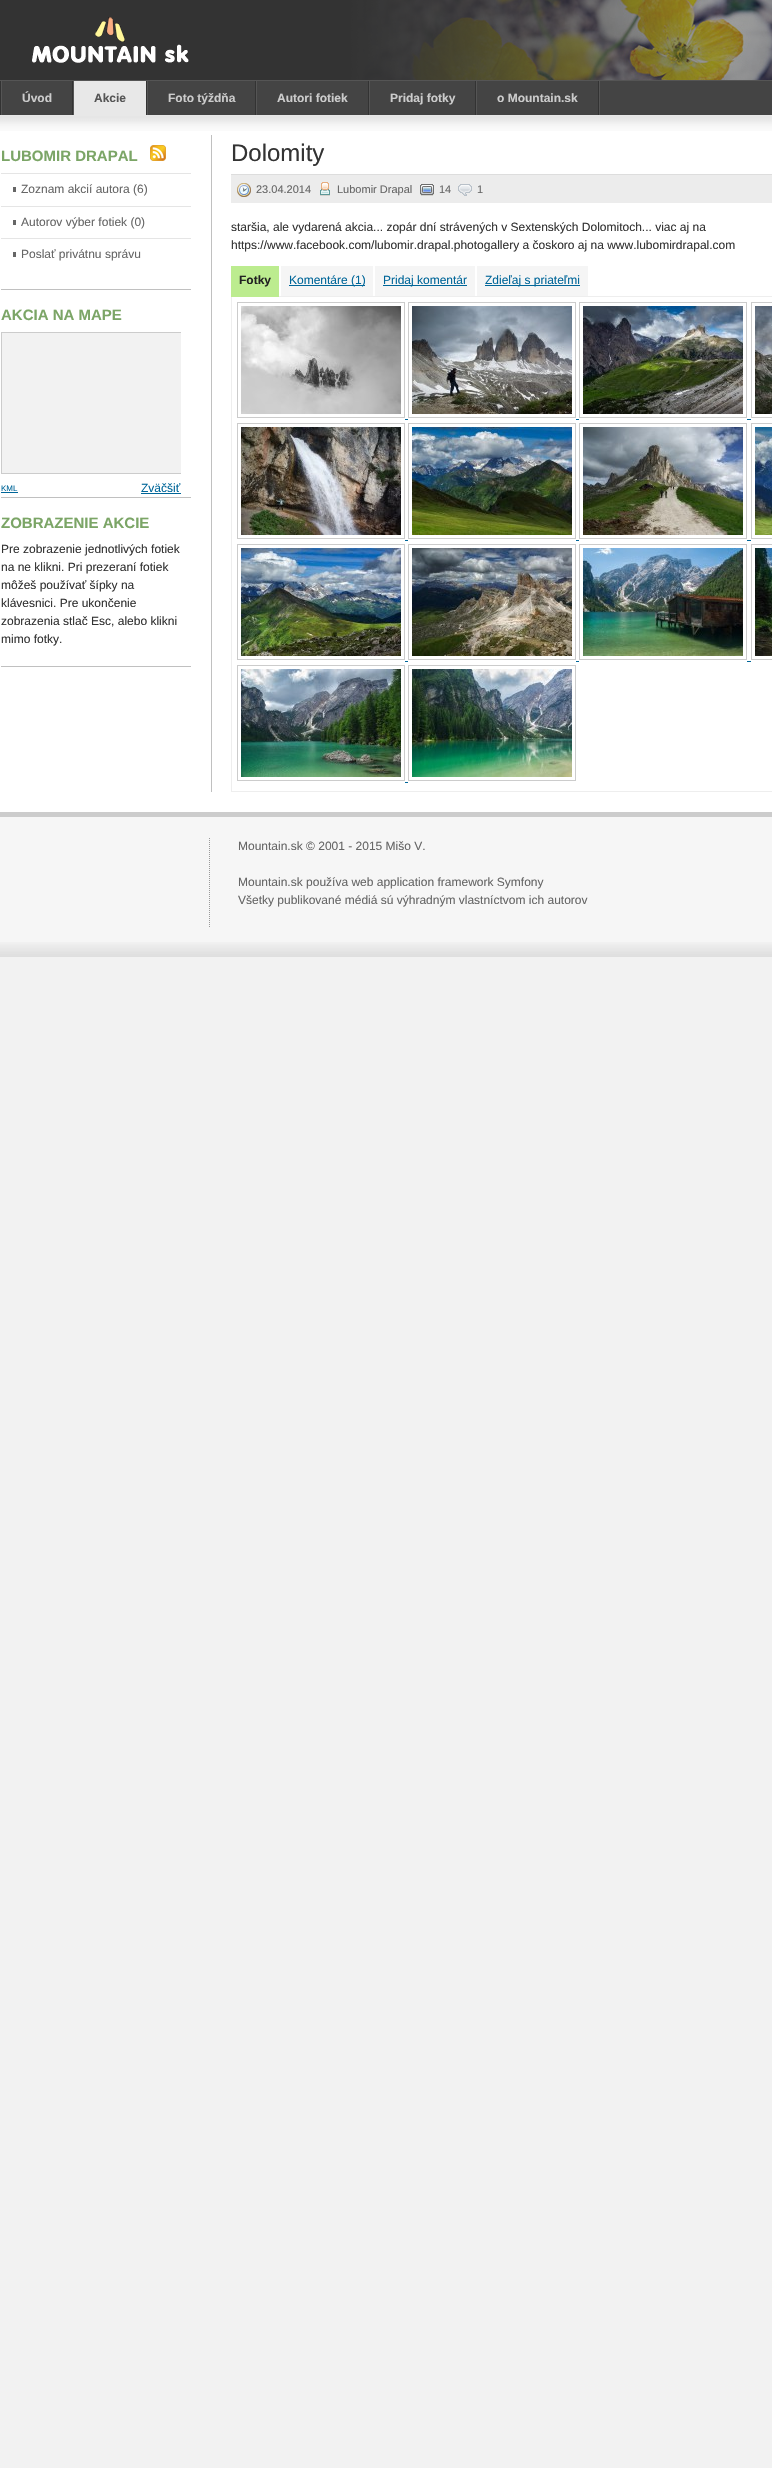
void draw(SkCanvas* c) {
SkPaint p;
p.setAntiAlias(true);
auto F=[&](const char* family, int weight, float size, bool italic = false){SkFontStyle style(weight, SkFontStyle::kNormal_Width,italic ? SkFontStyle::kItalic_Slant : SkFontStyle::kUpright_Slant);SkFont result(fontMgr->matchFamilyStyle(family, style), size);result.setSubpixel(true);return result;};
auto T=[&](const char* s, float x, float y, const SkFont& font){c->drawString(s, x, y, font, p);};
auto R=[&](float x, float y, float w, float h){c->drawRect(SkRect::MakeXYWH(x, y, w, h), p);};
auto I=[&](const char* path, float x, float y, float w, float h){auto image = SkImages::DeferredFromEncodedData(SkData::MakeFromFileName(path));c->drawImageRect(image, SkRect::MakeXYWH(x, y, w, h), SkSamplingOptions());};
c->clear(0xfff2f2f2);
p.setColor(0xffffffff);
R(0,131,772,681);
p.setColor(0xff333333);
R(0,0,351,80);
I("1.png",356,0,416,80);
I("2.png",32,17,157,46);
I("3.png",351,0,421,80);
p.setColor(0xff444444);
R(2,81,770,34);
p.setColor(0xff555555);
R(0,80,772,1);
p.setColor(0xff333333);
R(0,81,1,34);
p.setColor(0xff555555);
R(599,81,1,34);
p.setColor(0xff333333);
R(72,81,1,34);
p.setColor(0xff555555);
R(1,81,1,34);
auto f1 = F("Liberation Sans",700,12);
p.setColor(0xffcccccc);
T("Úvod",22,102,f1);
p.setColor(0xffe8e8e8);
R(74,81,72,34);
p.setColor(0xff333333);
R(146,81,1,34);
p.setColor(0xff555555);
R(73,81,1,34);
T("Akcie",94,102,f1);
p.setColor(0xff333333);
R(255,81,1,34);
p.setColor(0xff555555);
R(147,81,1,34);
p.setColor(0xffcccccc);
T("Foto týždňa",168,102,f1);
p.setColor(0xff333333);
R(368,81,1,34);
p.setColor(0xff555555);
R(256,81,1,34);
p.setColor(0xffcccccc);
T("Autori fotiek",277,102,f1);
p.setColor(0xff333333);
R(475,81,1,34);
p.setColor(0xff555555);
R(369,81,1,34);
p.setColor(0xffcccccc);
T("Pridaj fotky",390,102,f1);
p.setColor(0xff333333);
R(598,81,1,34);
p.setColor(0xff555555);
R(476,81,1,34);
p.setColor(0xffcccccc);
T("o Mountain.sk",497,102,f1);
I("4.png",0,115,772,16);
p.setColor(0xffc0c0c0);
R(211,135,1,657);
R(1,289,190,1);
auto f2 = F("Liberation Sans",700,15);
p.setColor(0xff7ba566);
T("LUBOMIR DRAPAL",1,161,f2);
I("5.png",150,145,16,16);
p.setColor(0xff666666);
R(13,187,3,5);
p.setColor(0xffe5e5e5);
R(1,173,190,1);
auto f3 = F("Liberation Sans",400,12);
p.setColor(0xff666666);
T("Zoznam akcií autora (6)",21,193,f3);
R(13,220,3,5);
p.setColor(0xffe5e5e5);
R(1,206,190,1);
p.setColor(0xff666666);
T("Autorov výber fotiek (0)",21,226,f3);
R(13,252,3,5);
p.setColor(0xffe5e5e5);
R(1,238,190,1);
p.setColor(0xff666666);
T("Poslať privátnu správu",21,258,f3);
p.setColor(0xffc0c0c0);
R(1,497,190,1);
p.setColor(0xff7ba566);
T("AKCIA NA MAPE",1,320,f2);
p.setStroke(true);
p.setStrokeWidth(1);
p.setColor(0xffcccccc);
c->drawRect(SkRect::MakeXYWH(1.5,332.5,179,141),p);
p.setStroke(false);
p.setColor(0xfff2f2f2);
R(2,333,179,140);
auto f4 = F("Liberation Sans",400,8);
p.setColor(0xff006699);
T("KML",1,491,f4);
R(1,492,17,1);
T("Zväčšiť",141,492,f3);
R(141,493,40,1);
p.setColor(0xffc0c0c0);
R(1,666,190,1);
p.setColor(0xff7ba566);
T("ZOBRAZENIE AKCIE",1,528,f2);
p.setColor(0xff333333);
T("Pre zobrazenie jednotlivých fotiek",1,553,f3);
T("na ne klikni. Pri prezeraní fotiek",1,571,f3);
T("môžeš používať šípky na",1,589,f3);
T("klávesnici. Pre ukončenie",1,607,f3);
T("zobrazenia stlač Esc, alebo klikni",1,625,f3);
T("mimo fotky.",1,643,f3);
auto f5 = F("Liberation Sans",400,24);
T("Dolomity",231,161,f5);
p.setColor(0xffececec);
R(231,175,541,28);
p.setColor(0xffdddddd);
R(231,174,541,1);
I("6.png",237,183,14,14);
auto f6 = F("Liberation Sans",400,11);
p.setColor(0xff666666);
T("23.04.2014",256,193,f6);
I("7.png",320,182,10,14);
T("Lubomir Drapal",337,193,f6);
I("8.png",420,184,14,12);
T("14",439,193,f6);
I("9.png",458,184,14,12);
T("1",477,193,f6);
p.setColor(0xff333333);
T("staršia, ale vydarená akcia... zopár dní strávených v Sextenských Dolomitoch... viac aj na",231,231,f3);
T("https://www.facebook.com/lubomir.drapal.photogallery a čoskoro aj na www.lubomirdrapal.com",231,249,f3);
p.setColor(0xffeeeeee);
R(279,296,493,1);
p.setColor(0xffbcec8f);
R(231,266,48,31);
p.setColor(0xff222222);
T("Fotky",239,284,f1);
p.setColor(0xfff5f5f5);
R(281,266,92,30);
p.setColor(0xff006699);
R(289,285,76,1);
T("Komentáre (1)",289,284,f3);
p.setColor(0xfff5f5f5);
R(375,266,100,30);
p.setColor(0xff006699);
R(383,285,84,1);
T("Pridaj komentár",383,284,f3);
p.setColor(0xfff5f5f5);
R(477,266,111,30);
p.setColor(0xff006699);
R(485,285,95,1);
T("Zdieľaj s priateľmi",485,284,f3);
p.setColor(0xffeeeeee);
R(231,791,541,1);
R(231,297,1,495);
p.setStroke(true);
p.setColor(0xffcccccc);
c->drawRect(SkRect::MakeXYWH(237.5,302.5,167,115),p);
c->drawRect(SkRect::MakeXYWH(408.5,302.5,167,115),p);
c->drawRect(SkRect::MakeXYWH(579.5,302.5,167,115),p);
c->drawRect(SkRect::MakeXYWH(751.5,302.5,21,115),p);
I("10.png",241,306,160,108);
I("11.png",412,306,160,108);
I("12.png",583,306,160,108);
I("13.png",755,306,17,108);
p.setStroke(false);
p.setColor(0xff006699);
R(405,419,3,1);
R(576,419,3,1);
R(747,419,4,1);
p.setStroke(true);
p.setColor(0xffcccccc);
c->drawRect(SkRect::MakeXYWH(237.5,423.5,167,115),p);
c->drawRect(SkRect::MakeXYWH(408.5,423.5,167,115),p);
c->drawRect(SkRect::MakeXYWH(579.5,423.5,167,115),p);
c->drawRect(SkRect::MakeXYWH(751.5,423.5,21,115),p);
I("14.png",241,427,160,108);
I("15.png",412,427,160,108);
I("16.png",583,427,160,108);
I("17.png",755,427,17,108);
p.setStroke(false);
p.setColor(0xff006699);
R(405,540,3,1);
R(576,540,3,1);
R(747,540,4,1);
p.setStroke(true);
p.setColor(0xffcccccc);
c->drawRect(SkRect::MakeXYWH(237.5,544.5,167,115),p);
c->drawRect(SkRect::MakeXYWH(408.5,544.5,167,115),p);
c->drawRect(SkRect::MakeXYWH(579.5,544.5,167,115),p);
c->drawRect(SkRect::MakeXYWH(751.5,544.5,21,115),p);
I("18.png",241,548,160,108);
I("19.png",412,548,160,108);
I("20.png",583,548,160,108);
I("21.png",755,548,17,108);
p.setStroke(false);
p.setColor(0xff006699);
R(405,661,3,1);
R(576,661,3,1);
R(747,661,4,1);
p.setStroke(true);
p.setColor(0xffcccccc);
c->drawRect(SkRect::MakeXYWH(237.5,665.5,167,115),p);
c->drawRect(SkRect::MakeXYWH(408.5,665.5,167,115),p);
I("22.png",241,669,160,108);
I("23.png",412,669,160,108);
p.setStroke(false);
p.setColor(0xff006699);
R(405,782,3,1);
p.setColor(0xfff6f6f6);
R(0,817,772,125);
I("24.png",0,942,772,15);
p.setColor(0xffcccccc);
R(0,812,772,5);
I("25.png",209,838,1,89);
p.setColor(0xff666666);
T("Mountain.sk © 2001 - 2015 Mišo V.",238,850,f3);
T("Mountain.sk používa web application framework Symfony",238,886,f3);
T("Všetky publikované médiá sú výhradným vlastníctvom ich autorov",238,904,f3);
}
